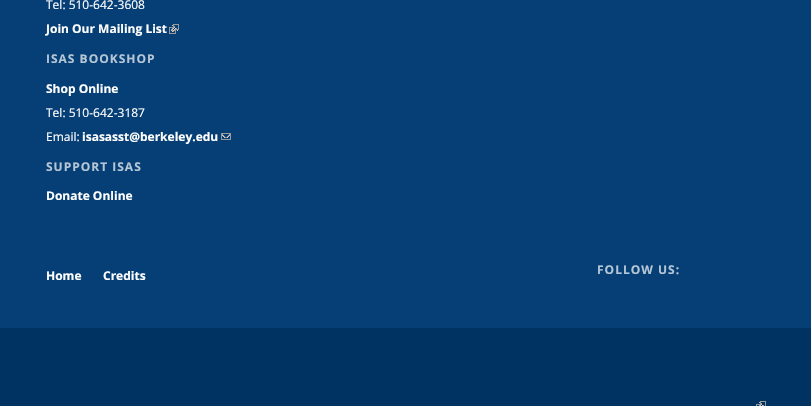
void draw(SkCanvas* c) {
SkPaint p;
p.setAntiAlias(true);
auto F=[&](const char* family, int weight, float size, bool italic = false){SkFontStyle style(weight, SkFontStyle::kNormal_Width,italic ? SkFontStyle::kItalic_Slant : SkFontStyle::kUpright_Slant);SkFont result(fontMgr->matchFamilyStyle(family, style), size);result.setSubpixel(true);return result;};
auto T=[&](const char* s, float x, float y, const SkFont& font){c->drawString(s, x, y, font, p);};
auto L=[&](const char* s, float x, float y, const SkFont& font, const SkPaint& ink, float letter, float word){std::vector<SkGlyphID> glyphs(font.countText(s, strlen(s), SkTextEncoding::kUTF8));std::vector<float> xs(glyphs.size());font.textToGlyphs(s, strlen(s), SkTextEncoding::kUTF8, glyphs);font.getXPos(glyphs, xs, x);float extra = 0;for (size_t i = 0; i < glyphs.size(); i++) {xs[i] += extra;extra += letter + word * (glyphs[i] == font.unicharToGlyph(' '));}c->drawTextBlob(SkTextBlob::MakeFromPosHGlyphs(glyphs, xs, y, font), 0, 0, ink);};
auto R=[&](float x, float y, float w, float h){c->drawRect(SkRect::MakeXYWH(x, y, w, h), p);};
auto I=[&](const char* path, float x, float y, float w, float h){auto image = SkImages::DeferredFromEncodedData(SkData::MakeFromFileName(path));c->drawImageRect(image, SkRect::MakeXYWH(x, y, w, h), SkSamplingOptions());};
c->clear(0xff003262);
p.setColor(0xff063f75);
R(0,0,811,328);
auto f1 = F("Open Sans",400,12);
p.setColor(0xffffffff);
T("Tel: 510-642-3608",46,9,f1);
auto f2 = F("Open Sans",700,12);
T("Join Our Mailing List",46,33,f2);
I("1.png",169,24,10,10);
p.setColor(0xffb5c6d6);
L("ISAS BOOKSHOP",46,63,f2,p,1,0);
p.setColor(0xffffffff);
T("Shop Online",46,93,f2);
T("Tel: 510-642-3187",46,117,f1);
T("Email:",46,141,f1);
T("isasasst@berkeley.edu",82,141,f2);
I("2.png",221,133,10,7);
p.setColor(0xffb5c6d6);
L("SUPPORT ISAS",46,171,f2,p,1,0);
p.setColor(0xffffffff);
T("Donate Online",46,200,f2);
T("Home",46,280,f2);
T("Credits",103,280,f2);
p.setColor(0xffb5c6d6);
L("FOLLOW US:",597,274,f2,p,1,0);
I("3.png",756,401,10,5);
}
